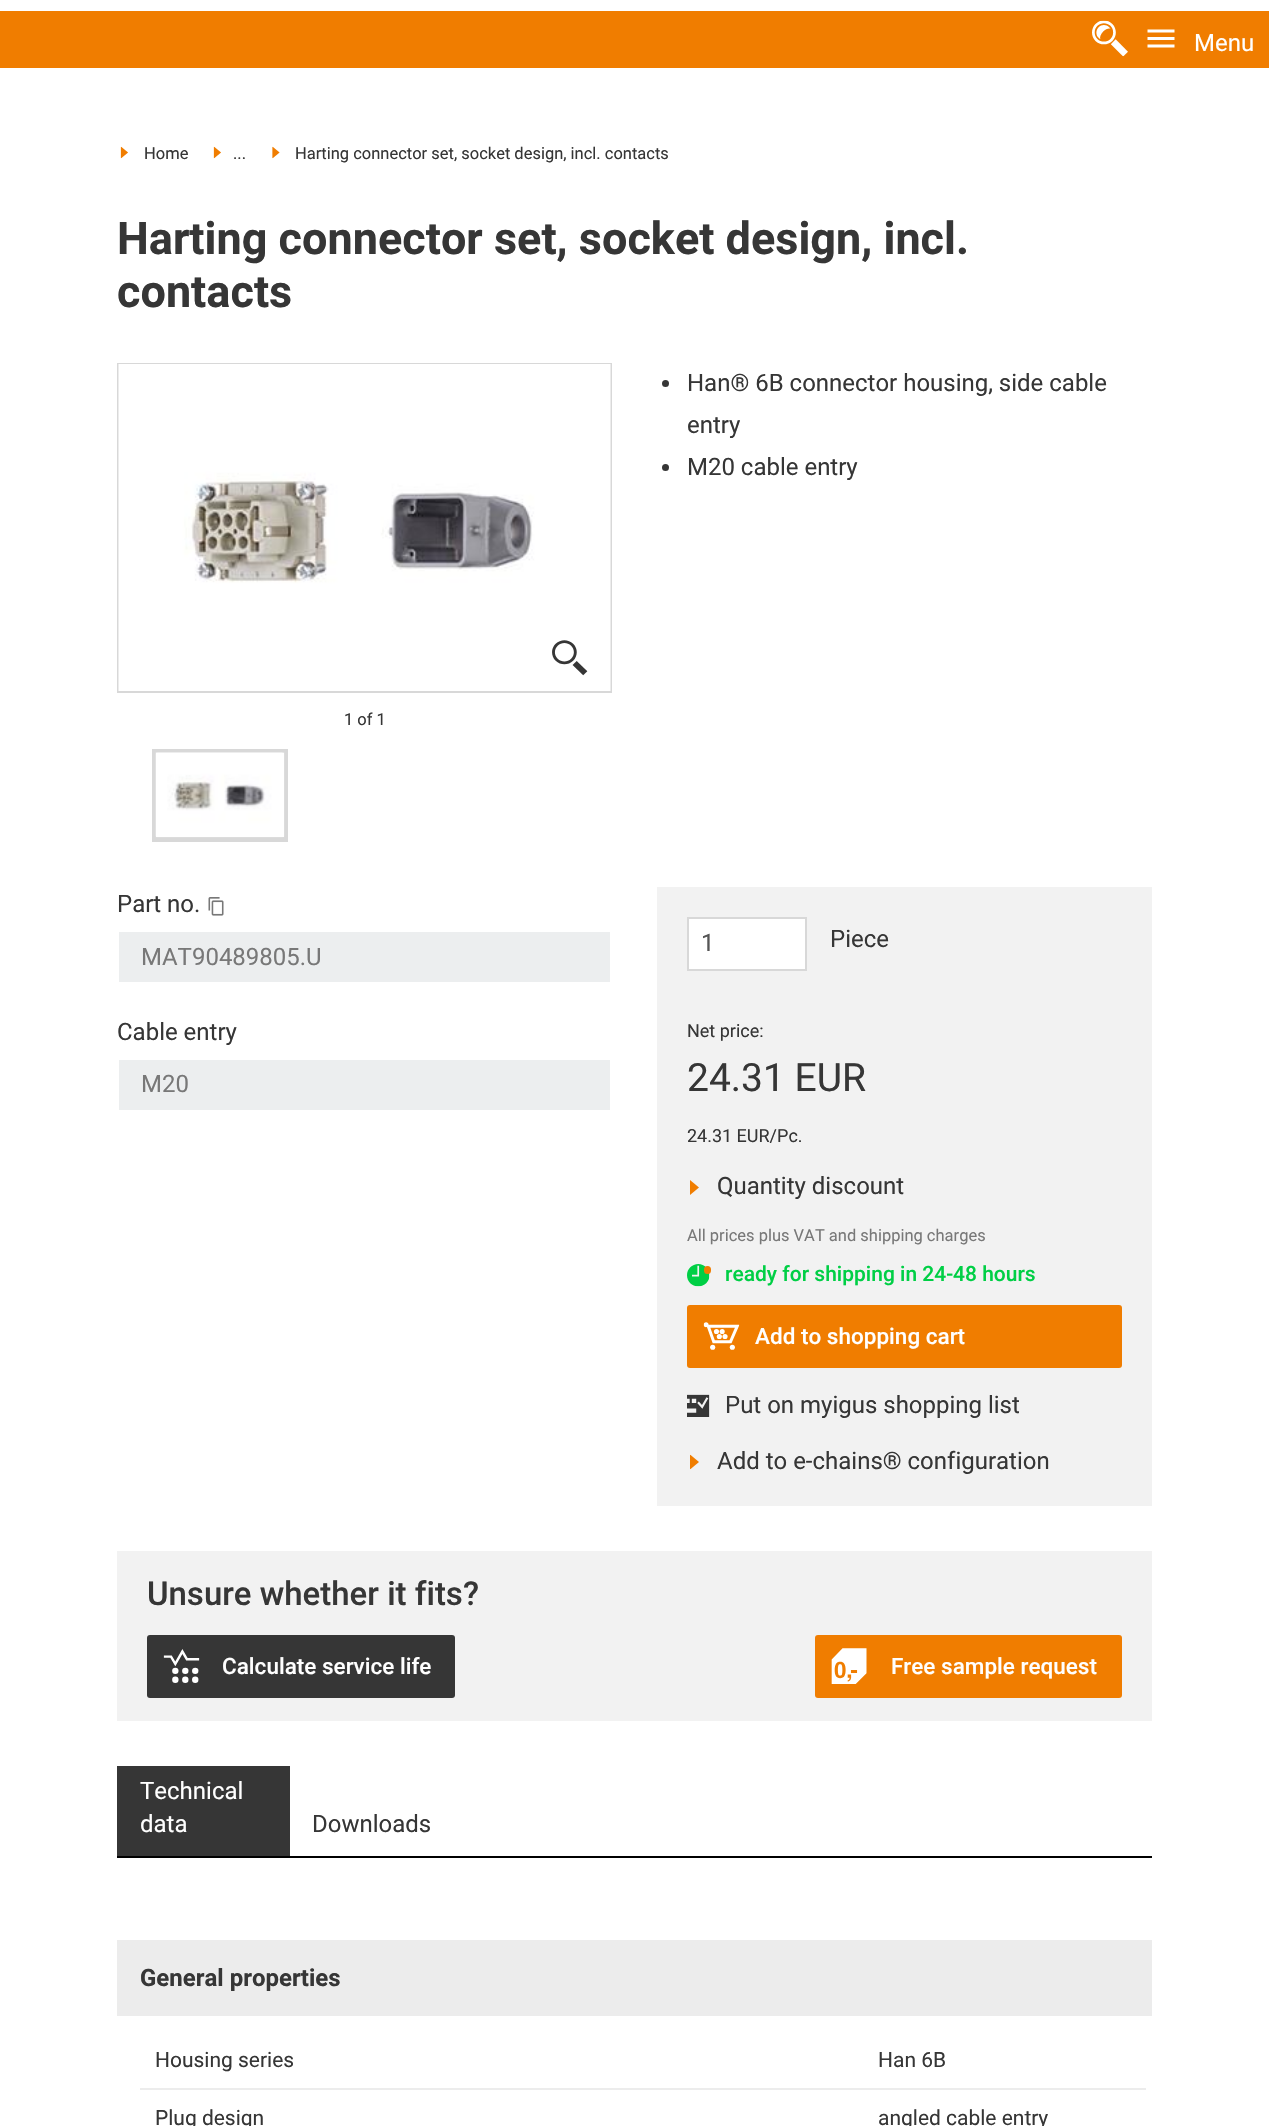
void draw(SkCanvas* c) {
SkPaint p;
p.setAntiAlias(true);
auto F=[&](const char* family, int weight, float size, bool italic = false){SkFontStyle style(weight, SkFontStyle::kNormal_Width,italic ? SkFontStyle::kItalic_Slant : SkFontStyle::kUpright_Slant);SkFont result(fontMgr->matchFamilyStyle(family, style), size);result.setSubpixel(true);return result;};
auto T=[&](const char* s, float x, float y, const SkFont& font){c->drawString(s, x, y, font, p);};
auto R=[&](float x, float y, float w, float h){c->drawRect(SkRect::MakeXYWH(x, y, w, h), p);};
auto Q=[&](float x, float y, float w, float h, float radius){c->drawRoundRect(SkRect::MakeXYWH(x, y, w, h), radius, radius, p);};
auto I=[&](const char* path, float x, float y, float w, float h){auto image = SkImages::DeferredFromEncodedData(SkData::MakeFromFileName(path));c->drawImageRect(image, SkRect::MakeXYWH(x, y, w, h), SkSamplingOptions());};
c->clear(0xffffffff);
p.setColor(0xfff07d00);
R(0,11,1269,57);
I("1.png",1092,20,36,37);
I("2.png",1147,29,28,19);
auto f1 = F("Roboto",400,24);
p.setColor(0xffffffff);
T("Menu",1194,51,f1);
I("3.png",120,146,8,13);
auto f2 = F("Roboto",400,16.5);
p.setColor(0xff363636);
T("Home",144,159,f2);
I("3.png",213,146,8,13);
T("...",233,159,f2);
I("4.png",272,146,8,13);
T("Harting connector set, socket design, incl. contacts",295,159,f2);
auto f3 = F("Roboto",700,45);
T("Harting connector set, socket design, incl.",117,254,f3);
T("contacts",117,307,f3);
c->drawCircle(665.5,383.5,3.5,p);
T("Han® 6B connector housing, side cable",687,391,f1);
T("entry",687,433,f1);
c->drawCircle(665.5,467.5,3.5,p);
T("M20 cable entry",687,475,f1);
p.setStroke(true);
p.setStrokeWidth(2);
p.setColor(0xffd8d8d8);
c->drawRect(SkRect::MakeXYWH(118,364,493,328),p);
I("5.png",118,364,493,327);
I("6.png",552,640,36,36);
p.setStroke(false);
p.setColor(0xff363636);
T("1 of 1",344,725,f2);
p.setStroke(true);
p.setColor(0xffd8d8d8);
c->drawRect(SkRect::MakeXYWH(153,750,134,91),p);
p.setStrokeWidth(3);
c->drawRect(SkRect::MakeXYWH(154.5,751.5,131,87),p);
I("7.png",155,752,130,86);
p.setStroke(false);
p.setColor(0xff363636);
T("Part no.",117,912,f1);
I("8.png",208,897,16,19);
p.setColor(0xffeceeef);
R(119,932,491,50);
p.setColor(0xff787878);
T("MAT90489805.U",141,965,f1);
p.setColor(0xff363636);
T("Cable entry",117,1040,f1);
p.setColor(0xffeceeef);
R(119,1060,491,50);
p.setColor(0xff787878);
T("M20",141,1092,f1);
p.setColor(0xfff2f2f2);
R(657,887,495,619);
p.setColor(0xffffffff);
c->drawRect(SkRect::MakeXYWH(688,918,118,52),p);
p.setStroke(true);
p.setStrokeWidth(2);
p.setColor(0xffd8d8d8);
c->drawRect(SkRect::MakeXYWH(688,918,118,52),p);
p.setStroke(false);
p.setColor(0xff555555);
T("1",701,951,f1);
p.setColor(0xff363636);
T("Piece",830,947,f1);
auto f4 = F("Roboto",400,18);
T("Net price:",687,1037,f4);
auto f5 = F("Roboto",400,39);
T("24.31 EUR",687,1091,f5);
T("24.31 EUR/Pc.",687,1142,f4);
I("9.png",690,1180,9,15);
T("Quantity discount",717,1194,f1);
p.setColor(0xff787878);
T("All prices plus VAT and shipping charges",687,1241,f2);
I("10.png",687,1264,23,23);
p.setColor(0xfff07d00);
c->drawRoundRect(SkRect::MakeXYWH(705,1267,5,6),2.5,2.5,p);
p.setStroke(true);
c->drawRoundRect(SkRect::MakeXYWH(705,1267,5,6),2.5,2.5,p);
auto f6 = F("Roboto",500,21);
p.setStroke(false);
p.setColor(0xff00cf45);
T("ready for shipping in 24-48 hours",725,1281,f6);
p.setColor(0xfff07d00);
Q(687,1305,435,63,3);
I("11.png",703,1322,37,28);
auto f7 = F("Roboto",500,22.5);
p.setColor(0xffffffff);
T("Add to shopping cart",755,1344,f7);
I("12.png",687,1394,23,23);
p.setColor(0xff363636);
T("Put on myigus shopping list",725,1413,f1);
I("13.png",690,1454,9,16);
T("Add to e-chains® configuration",717,1469,f1);
p.setColor(0xfff2f2f2);
R(117,1551,1035,170);
auto f8 = F("Roboto",500,33);
p.setColor(0xff363636);
T("Unsure whether it fits?",147,1605,f8);
Q(147,1635,308,63,3);
I("14.png",163,1649,37,34);
p.setColor(0xffffffff);
T("Calculate service life",222,1674,f7);
p.setColor(0xfff07d00);
Q(815,1635,307,63,3);
I("15.png",831,1648,36,36);
p.setColor(0xffffffff);
T("Free sample request",891,1674,f7);
p.setColor(0xff000000);
R(117,1856,1035,2);
p.setColor(0xff363636);
R(117,1766,173,90);
p.setColor(0xffffffff);
T("Technical",140,1799,f1);
T("data",140,1832,f1);
p.setColor(0xff363636);
T("Downloads",312,1832,f1);
p.setColor(0xffececec);
R(117,1940,1035,76);
auto f9 = F("Roboto",700,24);
p.setColor(0xff363636);
T("General properties",140,1986,f9);
p.setColor(0xffececec);
R(140,2088,1006,2);
auto f10 = F("Roboto",400,21);
p.setColor(0xff363636);
T("Housing series",155,2067,f10);
T("Han 6B",878,2067,f10);
T("Plug design",155,2125,f10);
T("angled cable entry",878,2125,f10);
}
